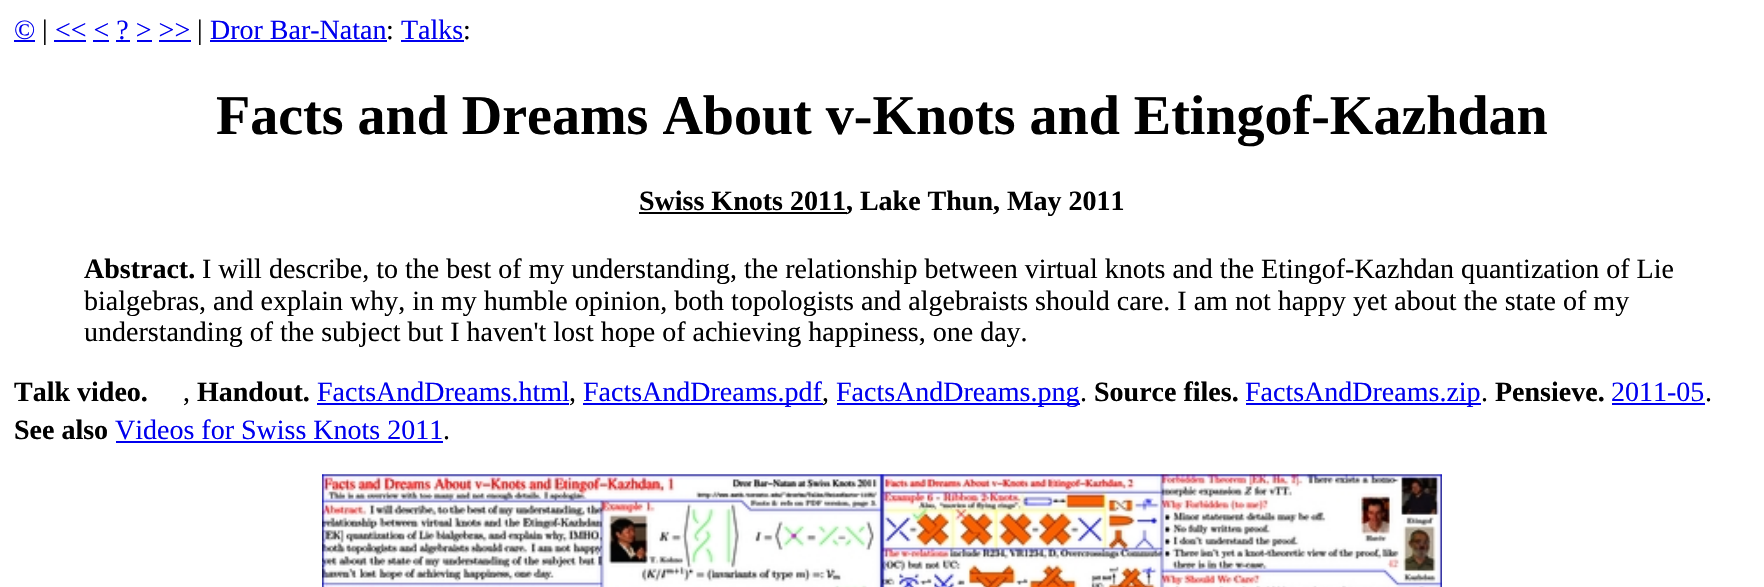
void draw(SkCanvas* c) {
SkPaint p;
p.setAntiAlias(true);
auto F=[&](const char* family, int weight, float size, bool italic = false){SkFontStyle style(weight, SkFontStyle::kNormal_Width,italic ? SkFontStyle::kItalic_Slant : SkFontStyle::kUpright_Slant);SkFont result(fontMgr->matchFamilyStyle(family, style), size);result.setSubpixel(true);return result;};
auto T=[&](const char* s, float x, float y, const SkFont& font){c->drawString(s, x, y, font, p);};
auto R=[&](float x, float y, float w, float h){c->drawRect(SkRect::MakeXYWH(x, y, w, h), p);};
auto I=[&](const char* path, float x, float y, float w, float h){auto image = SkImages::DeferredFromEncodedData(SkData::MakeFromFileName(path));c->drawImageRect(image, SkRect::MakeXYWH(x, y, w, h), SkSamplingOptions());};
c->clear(0xffffffff);
auto f1 = F("Liberation Serif",400,28);
p.setColor(0xff0000ee);
T("©",14,39,f1);
R(14,40,21,2);
p.setColor(0xff000000);
T("|",42,39,f1);
p.setColor(0xff0000ee);
T("<< < ? > >>",55,39,f1);
R(54,40,32,2);
p.setColor(0xff000000);
T("|",197,39,f1);
p.setColor(0xff0000ee);
T("Dror Bar-Natan",210,39,f1);
R(210,40,177,2);
p.setColor(0xff000000);
T(":",386,39,f1);
p.setColor(0xff0000ee);
T("Talks",401,39,f1);
R(401,40,63,2);
p.setColor(0xff000000);
T(":",463,39,f1);
p.setColor(0xff0000ee);
R(93,40,16,2);
R(116,40,14,2);
R(137,40,15,2);
R(159,40,32,2);
auto f2 = F("Liberation Serif",700,56);
p.setColor(0xff000000);
T("Facts and Dreams About v-Knots and Etingof-Kazhdan",216,134,f2);
R(639,212,208,2);
auto f3 = F("Liberation Serif",700,28);
T("Swiss Knots 2011, Lake Thun, May 2011",639,210,f3);
T("Abstract.",84,278,f3);
T("I will describe, to the best of my understanding, the relationship between virtual knots and the Etingof-Kazhdan quantization of Lie",202,278,f1);
T("bialgebras, and explain why, in my humble opinion, both topologists and algebraists should care. I am not happy yet about the state of my",84,310,f1);
T("understanding of the subject but I haven't lost hope of achieving happiness, one day.",84,341,f1);
T("Talk video.",14,401,f3);
T(",",183,401,f1);
T("Handout.",197,401,f3);
p.setColor(0xff0000ee);
T("FactsAndDreams.html",317,401,f1);
R(317,403,252,2);
p.setColor(0xff000000);
T(",",569,401,f1);
p.setColor(0xff0000ee);
R(583,403,240,2);
T("FactsAndDreams.pdf",583,401,f1);
p.setColor(0xff000000);
T(",",822,401,f1);
p.setColor(0xff0000ee);
R(837,403,243,2);
T("FactsAndDreams.png",836,401,f1);
p.setColor(0xff000000);
T(".",1080,401,f1);
T("Source files.",1094,401,f3);
p.setColor(0xff0000ee);
R(1246,403,235,2);
T("FactsAndDreams.zip",1245,401,f1);
p.setColor(0xff000000);
T(".",1481,401,f1);
T("Pensieve.",1495,401,f3);
p.setColor(0xff0000ee);
T("2011-05",1611,401,f1);
R(1612,403,93,2);
p.setColor(0xff000000);
T(".",1705,401,f1);
T("See also",14,439,f3);
p.setColor(0xff0000ee);
T("Videos for Swiss Knots 2011",115,439,f1);
R(116,441,327,2);
p.setColor(0xff000000);
T(".",443,439,f1);
I("1.png",322,474,1120,113);
}
